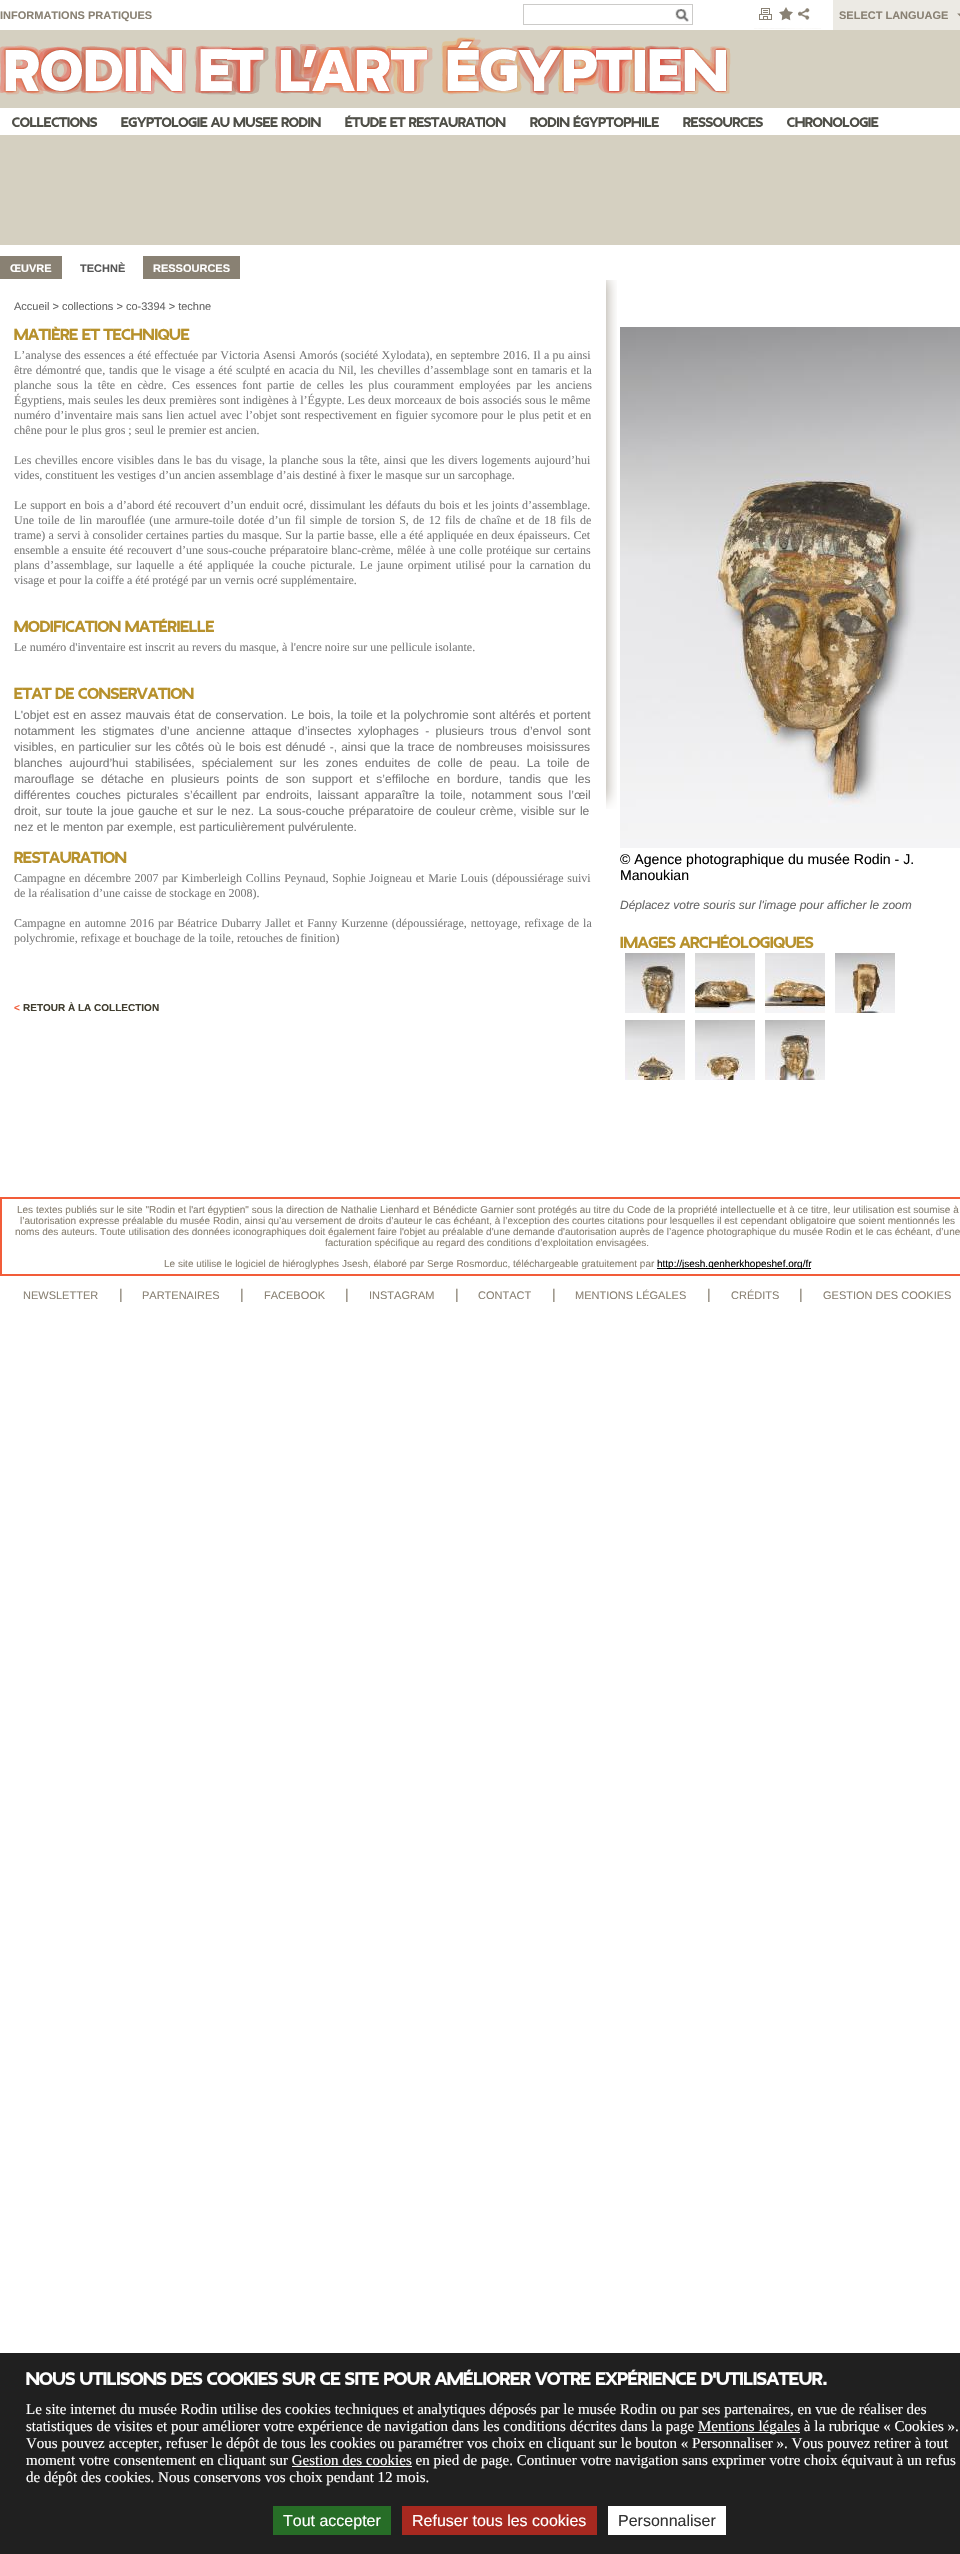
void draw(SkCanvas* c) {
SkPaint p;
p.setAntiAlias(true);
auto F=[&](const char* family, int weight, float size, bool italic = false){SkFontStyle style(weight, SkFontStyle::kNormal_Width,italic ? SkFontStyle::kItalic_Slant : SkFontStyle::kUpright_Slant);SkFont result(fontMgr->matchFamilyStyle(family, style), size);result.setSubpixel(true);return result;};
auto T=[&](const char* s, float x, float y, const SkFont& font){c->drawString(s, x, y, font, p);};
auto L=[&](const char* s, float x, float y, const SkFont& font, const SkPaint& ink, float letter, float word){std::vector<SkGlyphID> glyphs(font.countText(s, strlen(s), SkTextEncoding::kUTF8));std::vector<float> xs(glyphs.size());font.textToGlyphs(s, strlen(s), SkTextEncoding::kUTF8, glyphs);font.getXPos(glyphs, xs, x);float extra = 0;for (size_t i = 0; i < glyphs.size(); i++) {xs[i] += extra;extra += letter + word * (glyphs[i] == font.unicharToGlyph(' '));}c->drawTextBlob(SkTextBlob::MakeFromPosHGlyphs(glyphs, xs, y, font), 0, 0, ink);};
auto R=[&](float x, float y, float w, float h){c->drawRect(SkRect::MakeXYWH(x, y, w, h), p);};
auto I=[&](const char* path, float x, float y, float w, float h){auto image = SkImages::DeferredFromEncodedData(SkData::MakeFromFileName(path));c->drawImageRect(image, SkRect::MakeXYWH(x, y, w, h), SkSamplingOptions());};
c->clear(0xffffffff);
p.setColor(0xffd5d0c1);
R(0,30,960,215);
auto f1 = F("Liberation Sans",700,11);
p.setColor(0xff898173);
T("INFORMATIONS PRATIQUES",0,19,f1);
p.setStroke(true);
p.setStrokeWidth(1);
p.setColor(0xffcccbc9);
c->drawRect(SkRect::MakeXYWH(523.5,4.5,169,20),p);
I("1.png",675,9,14,13);
I("2.png",754,8,22,21);
I("3.png",776,7,18,22);
I("4.png",794,8,27,21);
p.setStroke(false);
p.setColor(0xffeceae4);
R(833,0,127,30);
I("5.png",957,13,3,4);
p.setColor(0xff898173);
T("SELECT LANGUAGE",839,19,f1);
I("6.png",0,37,731,58);
p.setColor(0xffffffff);
R(0,108,960,27);
auto f2 = F("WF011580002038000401",700,12.05);
p.setColor(0xff4f4f48);
T("COLLECTIONS",12,127,f2);
T("EGYPTOLOGIE AU MUSEE RODIN",121,127,f2);
T("ÉTUDE ET RESTAURATION",345,127,f2);
T("RODIN ÉGYPTOPHILE",530,127,f2);
T("RESSOURCES",683,127,f2);
T("CHRONOLOGIE",787,127,f2);
p.setColor(0xff898173);
R(0,256,62,23);
p.setColor(0xffffffff);
T("ŒUVRE",10,272,f1);
p.setColor(0xff555555);
T("TECHNÈ",80,272,f1);
p.setColor(0xff898173);
R(143,256,97,23);
p.setColor(0xffffffff);
T("RESSOURCES",153,272,f1);
I("7.png",606,280,11,529);
auto f3 = F("Liberation Sans",400,11);
p.setColor(0xff666666);
T("Accueil > collections > co-3394 > techne",14,310,f3);
auto f4 = F("WF011580002038000401",700,14);
p.setColor(0xffb7912c);
T("Matière et technique",14,340,f4);
auto f5 = F("Liberation Serif",400,12);
p.setColor(0xff7a7a7a);
L("L’analyse des essences a été effectuée par Victoria Asensi Amorós (société Xylodata), en septembre 2016. Il a pu ainsi",14,359,f5,p,0,.3);
L("être démontré que, tandis que le visage a été sculpté en acacia du Nil, les chevilles d’assemblage sont en tamaris et la",14,374,f5,p,0,.75);
L("planche sous la tête en cèdre. Ces essences font partie de celles les plus couramment employées par les anciens",14,389,f5,p,0,2.5);
L("Égyptiens, mais seules les deux premières sont indigènes à l’Égypte. Les deux morceaux de bois associés sous le même",14,404,f5,p,0,.1);
L("numéro d’inventaire mais sans lien actuel avec l’objet sont respectivement en figuier sycomore pour le plus petit et en",14,419,f5,p,0,.6);
T("chêne pour le plus gros ; seul le premier est ancien.",14,434,f5);
L("Les chevilles encore visibles dans le bas du visage, la planche sous la tête, ainsi que les divers logements aujourd’hui",14,464,f5,p,0,.75);
T("vides, constituent les vestiges d’un ancien assemblage d’ais destiné à fixer le masque sur un sarcophage.",14,479,f5);
L("Le support en bois a d’abord été recouvert d’un enduit ocré, dissimulant les défauts du bois et les joints d’assemblage.",14,509,f5,p,0,.5);
L("Une toile de lin marouflée (une armure-toile dotée d’un fil simple de torsion S, de 12 fils de chaîne et de 18 fils de",14,524,f5,p,0,1.25);
L("trame) a servi à consolider certaines parties du masque. Sur la partie basse, elle a été appliquée en deux épaisseurs. Cet",14,539,f5,p,0,.3);
L("ensemble a ensuite été recouvert d’une sous-couche préparatoire blanc-crème, mêlée à une colle protéique sur certains",14,554,f5,p,0,.6);
L("plans d’assemblage, sur laquelle a été appliquée la couche picturale. Le jaune orpiment utilisé pour la carnation du",14,569,f5,p,0,1.6);
T("visage et pour la coiffe a été protégé par un vernis ocré supplémentaire.",14,584,f5);
p.setColor(0xffb7912c);
T("Modification matérielle",14,632,f4);
p.setColor(0xff7a7a7a);
T("Le numéro d'inventaire est inscrit au revers du masque, à l'encre noire sur une pellicule isolante.",14,651,f5);
p.setColor(0xffb7912c);
T("Etat de conservation",14,699,f4);
auto f6 = F("Liberation Sans",400,12.05);
p.setColor(0xff7a7a7a);
L("L'objet est en assez mauvais état de conservation. Le bois, la toile et la polychromie sont altérés et portent",14,719,f6,p,0,.5);
L("notamment les stigmates d’une ancienne attaque d’insectes xylophages - plusieurs trous d’envol sont",14,735,f6,p,0,3);
L("visibles, en particulier sur les côtés où le bois est dénudé -, ainsi que la trace de nombreuses moisissures",14,751,f6,p,0,.75);
L("blanches aujourd’hui stabilisées, spécialement sur les zones enduites de colle de peau. La toile de",14,767,f6,p,0,3.6);
L("marouflage se détache en plusieurs points de son support et s’effiloche en bordure, tandis que les",14,783,f6,p,0,3.6);
L("différentes couches picturales s’écaillent par endroits, laissant apparaître la toile, notamment sous l’œil",14,799,f6,p,0,2.4);
L("droit, sur toute la joue gauche et sur le nez. La sous-couche préparatoire de couleur crème, visible sur le",14,815,f6,p,0,1);
T("nez et le menton par exemple, est particulièrement pulvérulente.",14,831,f6);
p.setColor(0xffb7912c);
T("Restauration",14,863,f4);
p.setColor(0xff7a7a7a);
L("Campagne en décembre 2007 par Kimberleigh Collins Peynaud, Sophie Joigneau et Marie Louis (dépoussiérage suivi",14,882,f5,p,0,.75);
T("de la réalisation d’une caisse de stockage en 2008).",14,897,f5);
L("Campagne en automne 2016 par Béatrice Dubarry Jallet et Fanny Kurzenne (dépoussiérage, nettoyage, refixage de la",14,927,f5,p,0,1);
T("polychromie, refixage et bouchage de la toile, retouches de finition)",14,942,f5);
auto f7 = F("Liberation Sans",700,10);
p.setColor(0xfff25c39);
T("<",14,1011,f7);
p.setColor(0xff413e30);
T("RETOUR À LA COLLECTION",23,1011,f7);
I("8.png",620,327,340,521);
auto f8 = F("Liberation Sans",400,14.1);
p.setColor(0xff000000);
T("© Agence photographique du musée Rodin - J.",620,864,f8);
T("Manoukian",620,880,f8);
auto f9 = F("Liberation Sans",400,12,true);
p.setColor(0xff666666);
T("Déplacez votre souris sur l'image pour afficher le zoom",620,909,f9);
p.setColor(0xffb7912c);
T("Images archéologiques",620,948,f4);
I("9.png",625,953,60,60);
I("10.png",695,953,60,60);
I("11.png",765,953,60,60);
I("12.png",835,953,60,60);
I("13.png",625,1020,60,60);
I("14.png",695,1020,60,60);
I("15.png",765,1020,60,60);
p.setStroke(true);
p.setStrokeWidth(2);
p.setColor(0xfff25c39);
c->drawRect(SkRect::MakeXYWH(1,1198,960,77),p);
auto f10 = F("Liberation Sans",400,10);
p.setStroke(false);
p.setColor(0xff898173);
T("Les textes publiés sur le site \"Rodin et l'art égyptien\" sous la direction de Nathalie Lienhard et Bénédicte Garnier sont protégés au titre du Code de la propriété intellectuelle et à ce titre, leur utilisation est soumise à",17,1213,f10);
T("l’autorisation expresse préalable du musée Rodin, ainsi qu’au versement de droits d’auteur le cas échéant, à l’exception des courtes citations pour lesquelles il est cependant obligatoire que soient mentionnés les",20,1224,f10);
T("noms des auteurs. Toute utilisation des données iconographiques doit également faire l'objet au préalable d'une demande d'autorisation auprès de l’agence photographique du musée Rodin et le cas échéant, d’une",15,1235,f10);
T("facturation spécifique au regard des conditions d’exploitation envisagées.",325,1246,f10);
T("Le site utilise le logiciel de hiéroglyphes Jsesh, élaboré par Serge Rosmorduc, téléchargeable gratuitement par",164,1267,f10);
p.setColor(0xff000000);
R(657,1268,154,1);
T("http://jsesh.qenherkhopeshef.org/fr",657,1267,f10);
p.setColor(0xff898173);
T("NEWSLETTER",23,1299,f3);
T("|",119,1299,f8);
T("PARTENAIRES",142,1299,f3);
T("|",240,1299,f8);
T("FACEBOOK",264,1299,f3);
T("|",345,1299,f8);
T("INSTAGRAM",369,1299,f3);
T("|",455,1299,f8);
T("CONTACT",478,1299,f3);
T("|",552,1299,f8);
T("MENTIONS LÉGALES",575,1299,f3);
T("|",707,1299,f8);
T("CRÉDITS",731,1299,f3);
T("|",799,1299,f8);
T("GESTION DES COOKIES",823,1299,f3);
p.setColor(0xff202020);
R(0,2353,960,201);
auto f11 = F("WF011580002038000401",700,16);
p.setColor(0xffffffff);
T("NOUS UTILISONS DES COOKIES SUR CE SITE POUR AMÉLIORER VOTRE EXPÉRIENCE D'UTILISATEUR.",26,2385,f11);
auto f12 = F("Liberation Serif",400,15);
T("Le site internet du musée Rodin utilise des cookies techniques et analytiques déposés par le musée Rodin ou par ses partenaires, en vue de réaliser des",26,2414,f12);
T("statistiques de visites et pour améliorer votre expérience de navigation dans les conditions décrites dans la page",26,2431,f12);
R(698,2432,102,1);
T("Mentions légales à la rubrique « Cookies ».",698,2431,f12);
T("Vous pouvez accepter, refuser le dépôt de tous les cookies ou paramétrer vos choix en cliquant sur le bouton « Personnaliser ». Vous pouvez retirer à tout",26,2448,f12);
T("moment votre consentement en cliquant sur Gestion des cookies en pied de page. Continuer votre navigation sans exprimer votre choix équivaut à un refus",26,2465,f12);
R(292,2466,120,1);
T("de dépôt des cookies. Nous conservons vos choix pendant 12 mois.",26,2482,f12);
p.setColor(0xff276d27);
R(273,2506,118,29);
auto f13 = F("Liberation Sans",400,16);
p.setColor(0xffffffff);
T("Tout accepter",283,2526,f13);
p.setColor(0xffa72920);
R(402,2506,195,29);
p.setColor(0xffffffff);
T("Refuser tous les cookies",412,2526,f13);
R(608,2506,118,29);
p.setColor(0xff333333);
T("Personnaliser",618,2526,f13);
}
